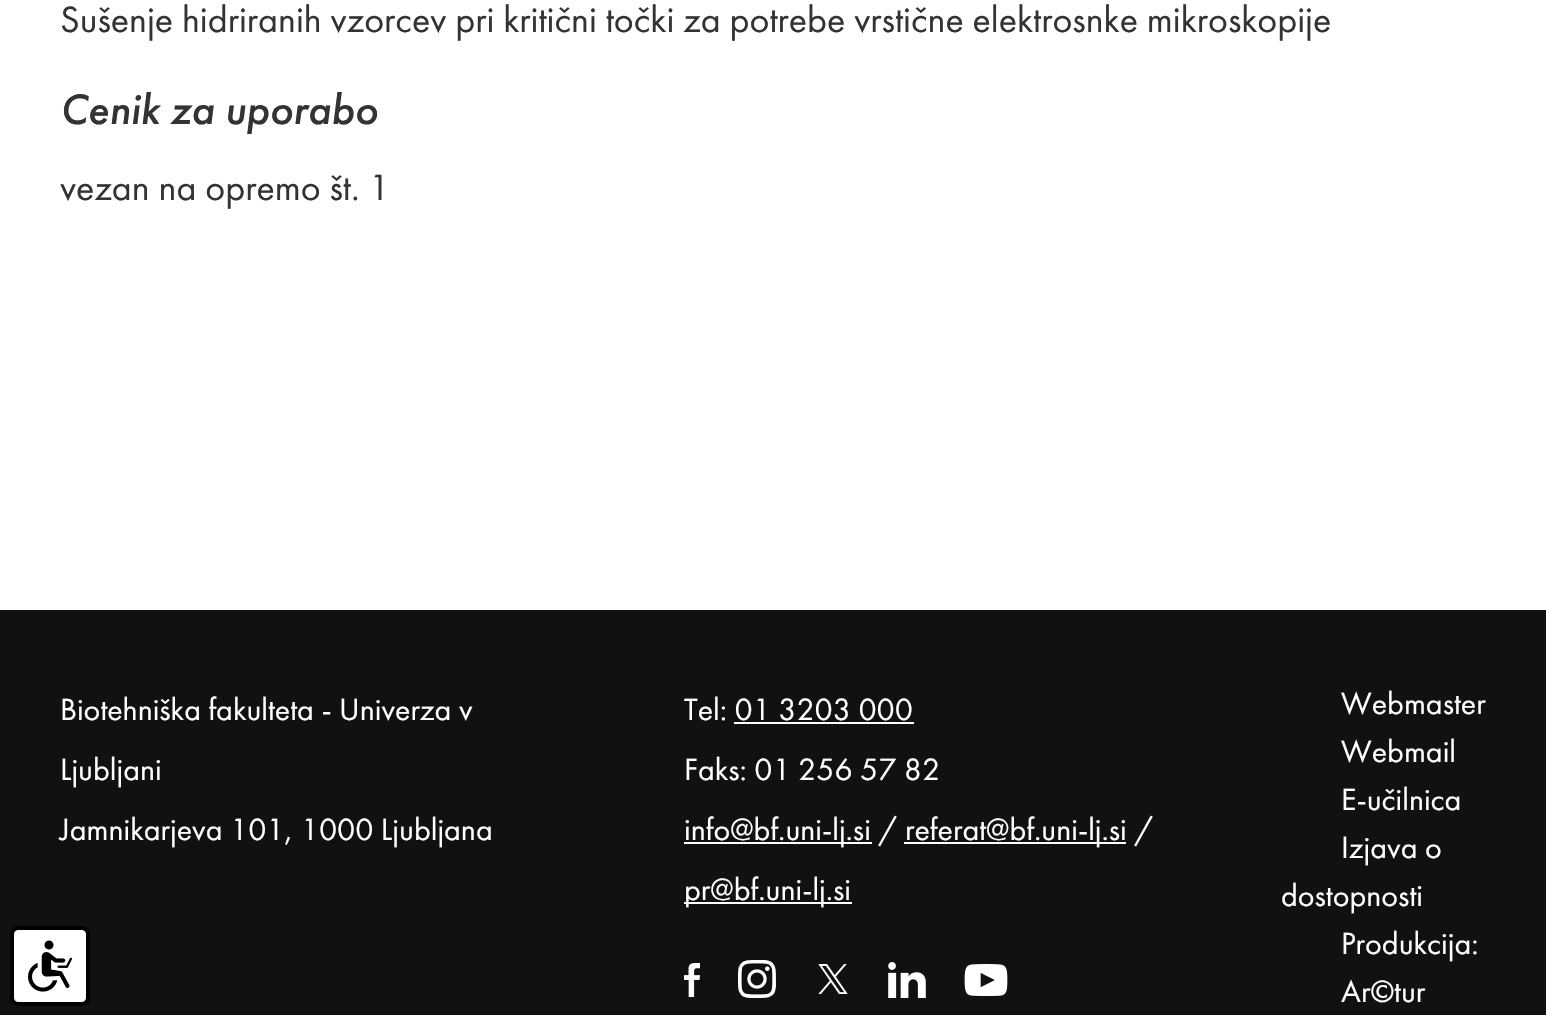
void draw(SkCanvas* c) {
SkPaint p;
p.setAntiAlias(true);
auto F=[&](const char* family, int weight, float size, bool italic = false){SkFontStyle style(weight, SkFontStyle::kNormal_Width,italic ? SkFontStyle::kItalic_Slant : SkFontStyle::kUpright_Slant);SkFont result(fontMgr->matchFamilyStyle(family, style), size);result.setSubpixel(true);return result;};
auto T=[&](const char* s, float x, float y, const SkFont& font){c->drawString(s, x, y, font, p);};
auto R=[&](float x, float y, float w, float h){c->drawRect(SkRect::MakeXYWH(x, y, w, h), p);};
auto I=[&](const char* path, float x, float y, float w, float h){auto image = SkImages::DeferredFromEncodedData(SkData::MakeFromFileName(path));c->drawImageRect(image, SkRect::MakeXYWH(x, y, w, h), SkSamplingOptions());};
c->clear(0xff111111);
p.setColor(0xffffffff);
R(0,0,1546,610);
auto f1 = F("Futura PT",400,38);
p.setColor(0xff333333);
T("Sušenje hidriranih vzorcev pri kritični točki za potrebe vrstične elektrosnke mikroskopije",60,32,f1);
auto f2 = F("Futura PT",500,44,true);
T("Cenik za uporabo",60,124,f2);
T("vezan na opremo št. 1",60,200,f1);
I("1.png",10,926,80,80);
auto f3 = F("Futura PT",400,32);
p.setColor(0xffffffff);
T("Biotehniška fakulteta - Univerza v",60,720,f3);
T("Ljubljani",60,780,f3);
T("Jamnikarjeva 101, 1000 Ljubljana",60,840,f3);
T("Tel: 01 3203 000",684,720,f3);
R(734,722,180,2);
T("Faks: 01 256 57 82",684,780,f3);
R(684,842,188,2);
T("info@bf.uni-lj.si /",684,840,f3);
R(904,842,222,2);
T("referat@bf.uni-lj.si /",905,840,f3);
R(684,902,168,2);
T("pr@bf.uni-lj.si",684,900,f3);
I("2.png",684,963,16,34);
I("3.png",738,960,38,38);
I("4.png",818,964,30,30);
I("5.png",888,962,38,36);
I("6.png",964,964,44,32);
T("Webmaster",1341,714,f3);
T("Webmail",1341,762,f3);
T("E-učilnica",1341,810,f3);
T("Izjava o",1341,858,f3);
T("dostopnosti",1281,906,f3);
T("Produkcija:",1341,954,f3);
T("Ar©tur",1341,1002,f3);
}
